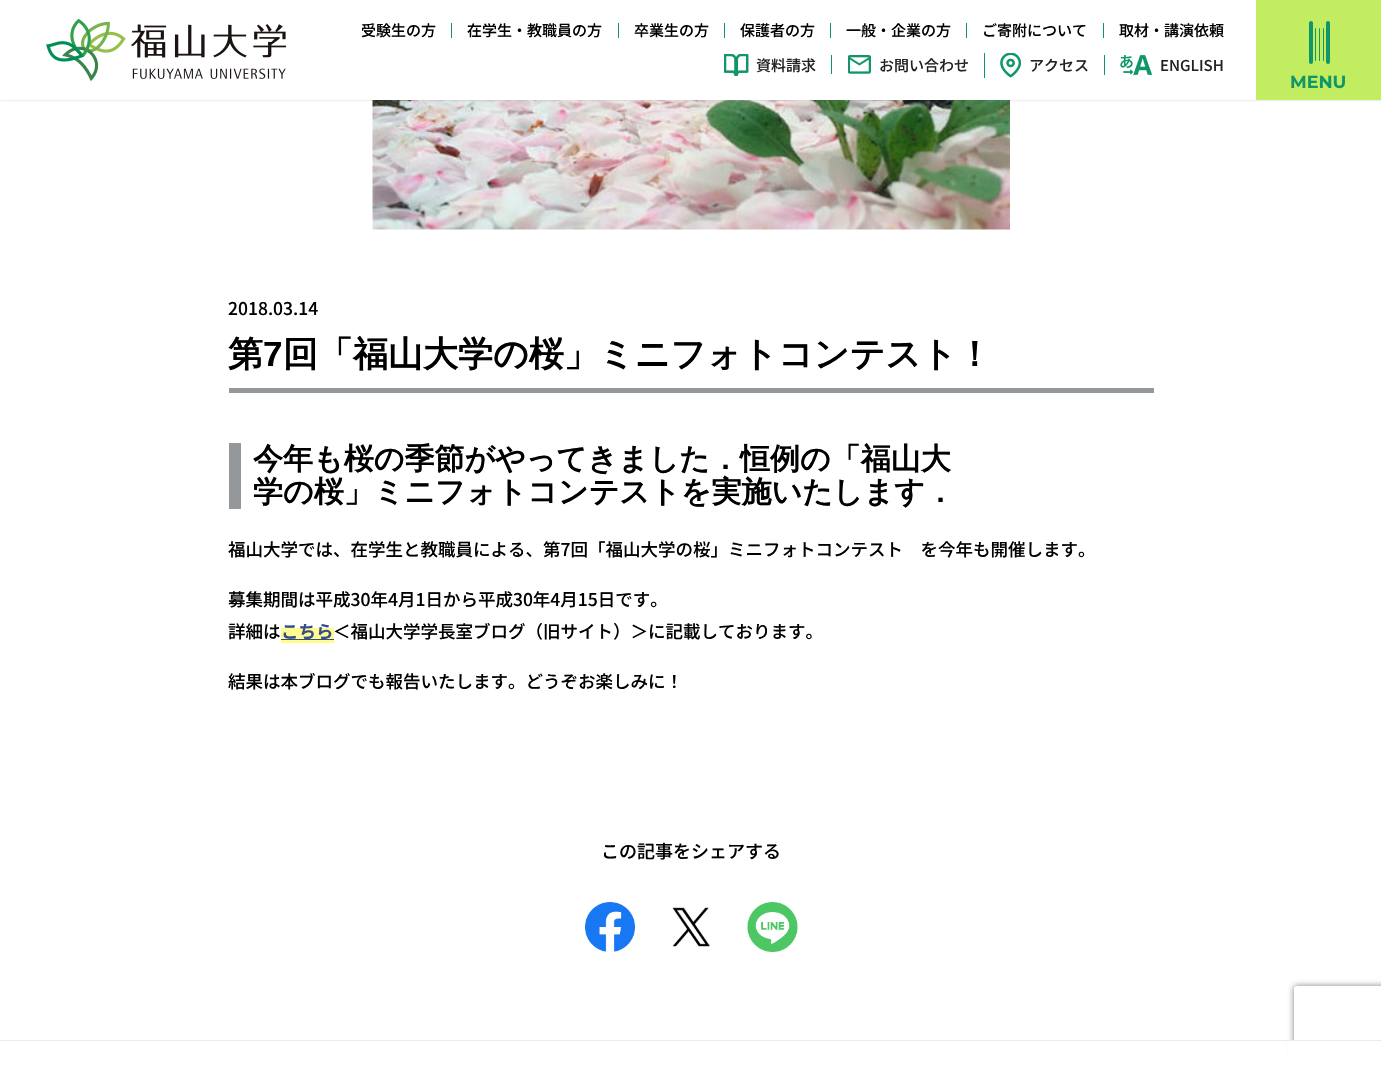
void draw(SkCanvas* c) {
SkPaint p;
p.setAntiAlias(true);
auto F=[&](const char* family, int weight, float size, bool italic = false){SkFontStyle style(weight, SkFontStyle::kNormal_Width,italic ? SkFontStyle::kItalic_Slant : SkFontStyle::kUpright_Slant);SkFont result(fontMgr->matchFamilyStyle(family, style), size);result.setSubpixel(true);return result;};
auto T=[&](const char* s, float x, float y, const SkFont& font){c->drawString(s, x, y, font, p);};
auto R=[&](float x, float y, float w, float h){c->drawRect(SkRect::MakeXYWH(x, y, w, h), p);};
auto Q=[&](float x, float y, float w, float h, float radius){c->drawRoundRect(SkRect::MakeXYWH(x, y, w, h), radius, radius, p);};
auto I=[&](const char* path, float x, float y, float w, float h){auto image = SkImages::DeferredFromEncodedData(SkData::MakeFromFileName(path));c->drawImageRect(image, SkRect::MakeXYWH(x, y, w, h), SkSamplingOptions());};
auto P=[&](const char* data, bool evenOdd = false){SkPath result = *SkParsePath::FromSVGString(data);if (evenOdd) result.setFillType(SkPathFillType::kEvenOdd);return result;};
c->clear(0xffffffff);
I("6.png",372,100,638,130);
p.setColor(0x33000000);
p.setMaskFilter(SkMaskFilter::MakeBlur(kNormal_SkBlurStyle, 1));
c->drawRect(SkRect::MakeXYWH(0,0,1381,100),p);
p.setMaskFilter(nullptr);
p.setColor(0xffffffff);
R(0,0,1256,100);
I("1.png",46,19,240,62);
auto f1 = F("Noto Sans JP",500,15);
p.setColor(0xff000000);
T("受験生の方",361,36,f1);
p.setColor(0xff119667);
R(451,23,1,15);
p.setColor(0xff000000);
T("在学生・教職員の方",467,36,f1);
p.setColor(0xff119667);
R(618,23,1,15);
p.setColor(0xff000000);
T("卒業生の方",634,36,f1);
p.setColor(0xff119667);
R(724,23,1,15);
p.setColor(0xff000000);
T("保護者の方",740,36,f1);
p.setColor(0xff119667);
R(830,23,1,15);
p.setColor(0xff000000);
T("一般・企業の方",846,36,f1);
p.setColor(0xff119667);
R(966,23,1,15);
p.setColor(0xff000000);
T("ご寄附について",982,36,f1);
p.setColor(0xff119667);
R(1103,23,1,15);
p.setColor(0xff000000);
T("取材・講演依頼",1119,36,f1);
I("2.png",724,54,25,22);
p.setColor(0xff222222);
T("資料請求",756,71,f1);
p.setColor(0xff119667);
R(831,55,1,19);
I("3.png",848,55,23,19);
p.setColor(0xff222222);
T("お問い合わせ",879,71,f1);
p.setColor(0xff119667);
R(984,53,1,25);
I("4.png",1000,53,21,25);
p.setColor(0xff222222);
T("アクセス",1029,71,f1);
p.setColor(0xff119667);
R(1104,55,1,20);
I("5.png",1120,55,33,20);
p.setColor(0xff222222);
T("ENGLISH",1160,71,f1);
p.setColor(0xffc2ed60);
R(1256,0,125,100);
p.setColor(0xff119667);
Q(1309,21,4,43,2);
Q(1315,28,1,33,.5);
Q(1319,28,1,33,.5);
Q(1323,28,1,33,.5);
Q(1326,21,4,43,2);
auto f2 = F("Montserrat",100,17.5);
T("MENU",1290,88,f2);
auto f3 = F("Noto Sans JP",500,17.5);
p.setColor(0xff000000);
T("2018.03.14",228,315,f3);
p.setColor(0xff95989a);
R(229,388,925,5);
auto f4 = F("WenQuanYi Zen Hei",700,35);
p.setColor(0xff000000);
T("第",228,366,f4);
auto f5 = F("Liberation Sans",700,35);
T("7",263,366,f5);
T("回「福山大学の桜」ミニフォトコンテスト！",283,366,f4);
p.setColor(0xff95989a);
R(229,443,12,66);
auto f6 = F("WenQuanYi Zen Hei",700,30);
p.setColor(0xff000000);
T("今年も桜の季節がやってきました．恒例の「福山大",253,469,f6);
T("学の桜」ミニフォトコンテストを実施いたします．",253,502,f6);
T("福山大学では、在学生と教職員による、第7回「福山大学の桜」ミニフォトコンテスト　を今年も開催します。",228,556,f3);
T("募集期間は平成30年4月1日から平成30年4月15日です。",228,606,f3);
T("詳細は",228,638,f3);
p.setColor(0xfffffb8e);
R(281,628,53,15);
auto f7 = F("Noto Sans JP",700,17.5);
p.setColor(0xff344b8b);
T("こちら",281,638,f7);
R(281,639,53,1);
p.setColor(0xff000000);
T("＜福山大学学長室ブログ（旧サイト）＞に記載しております。",333,638,f3);
T("結果は本ブログでも報告いたします。どうぞお楽しみに！",228,688,f3);
auto f8 = F("Noto Sans JP",500,18);
T("この記事をシェアする",601,858,f8);
I("7.png",585,902,50,50);
I("8.png",672,907,38,40);
I("9.png",747,902,51,50);
c->save();
c->clipPath(P("M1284 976h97v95h-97zm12.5 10h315c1.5 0 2.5 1 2.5 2.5v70c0 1.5-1 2.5-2.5 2.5h-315c-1.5 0-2.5-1-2.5-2.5v-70c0-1.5 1-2.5 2.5-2.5z",true),true);
p.setColor(0xff808080);
p.setMaskFilter(SkMaskFilter::MakeBlur(kNormal_SkBlurStyle, 3));
c->drawRoundRect(SkRect::MakeXYWH(1294,986,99,75),2.5,2.5,p);
p.setMaskFilter(nullptr);
c->restore();
p.setColor(0xffffffff);
R(1288,1041,93,26);
p.setColor(0xffeaeaea);
R(0,1040,1381,1);
}
